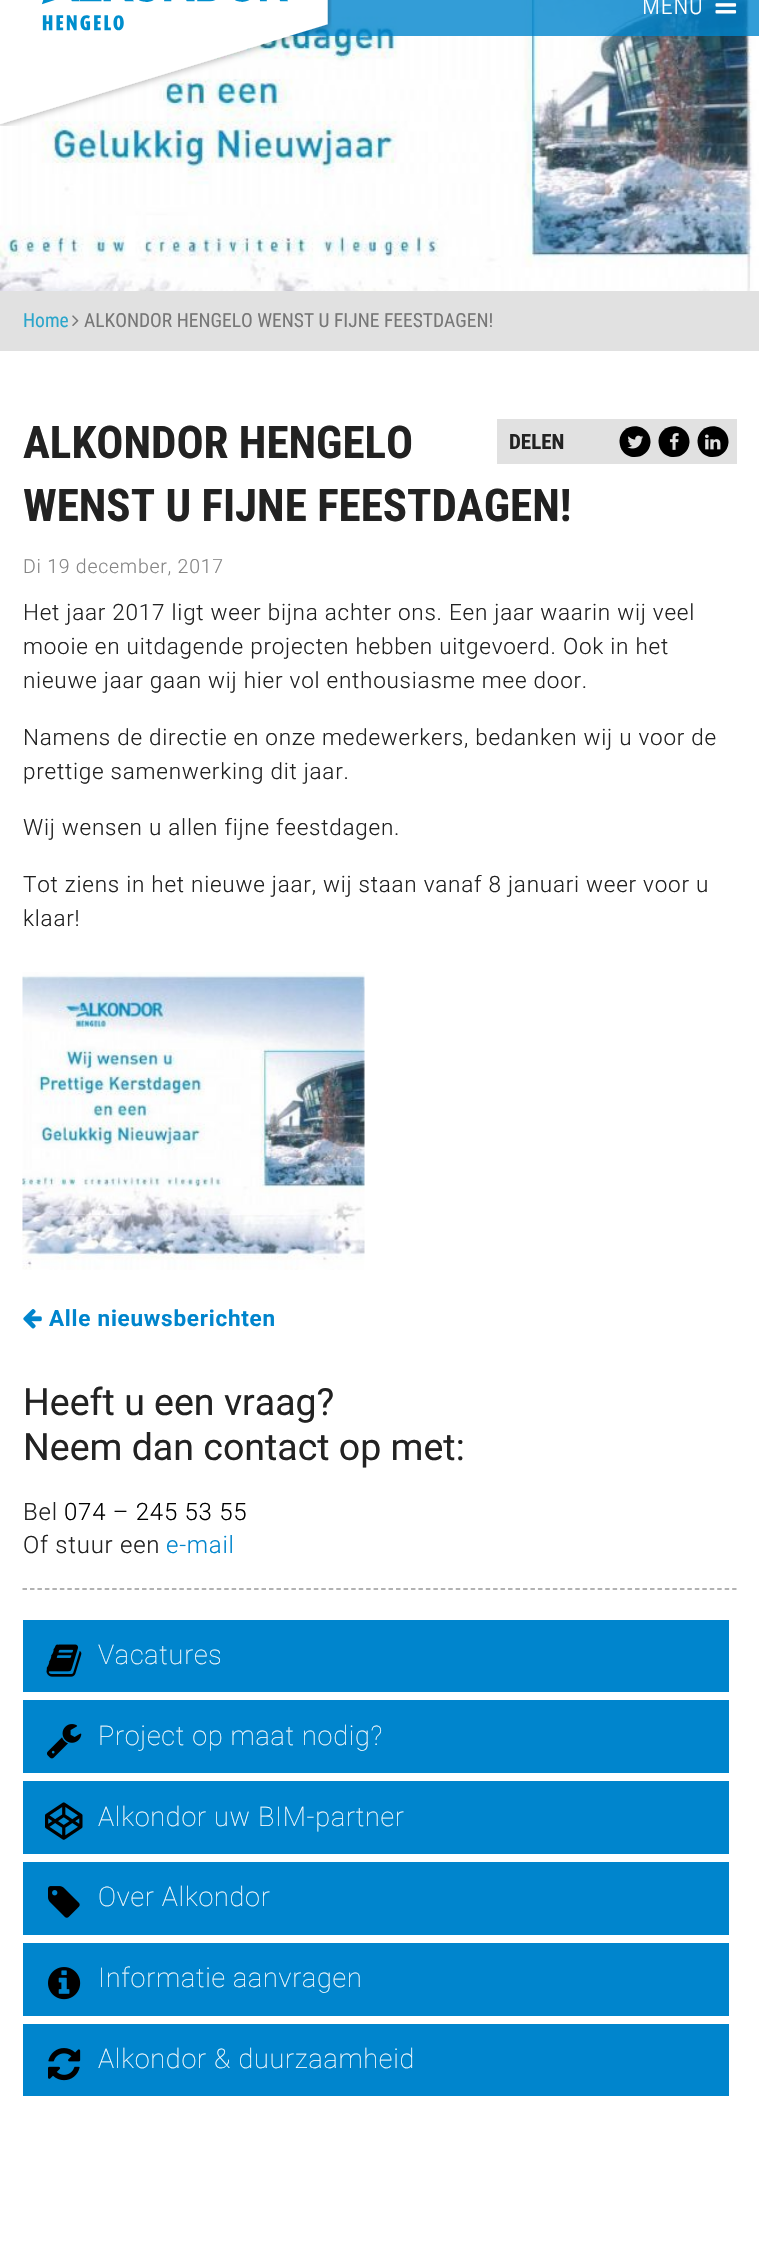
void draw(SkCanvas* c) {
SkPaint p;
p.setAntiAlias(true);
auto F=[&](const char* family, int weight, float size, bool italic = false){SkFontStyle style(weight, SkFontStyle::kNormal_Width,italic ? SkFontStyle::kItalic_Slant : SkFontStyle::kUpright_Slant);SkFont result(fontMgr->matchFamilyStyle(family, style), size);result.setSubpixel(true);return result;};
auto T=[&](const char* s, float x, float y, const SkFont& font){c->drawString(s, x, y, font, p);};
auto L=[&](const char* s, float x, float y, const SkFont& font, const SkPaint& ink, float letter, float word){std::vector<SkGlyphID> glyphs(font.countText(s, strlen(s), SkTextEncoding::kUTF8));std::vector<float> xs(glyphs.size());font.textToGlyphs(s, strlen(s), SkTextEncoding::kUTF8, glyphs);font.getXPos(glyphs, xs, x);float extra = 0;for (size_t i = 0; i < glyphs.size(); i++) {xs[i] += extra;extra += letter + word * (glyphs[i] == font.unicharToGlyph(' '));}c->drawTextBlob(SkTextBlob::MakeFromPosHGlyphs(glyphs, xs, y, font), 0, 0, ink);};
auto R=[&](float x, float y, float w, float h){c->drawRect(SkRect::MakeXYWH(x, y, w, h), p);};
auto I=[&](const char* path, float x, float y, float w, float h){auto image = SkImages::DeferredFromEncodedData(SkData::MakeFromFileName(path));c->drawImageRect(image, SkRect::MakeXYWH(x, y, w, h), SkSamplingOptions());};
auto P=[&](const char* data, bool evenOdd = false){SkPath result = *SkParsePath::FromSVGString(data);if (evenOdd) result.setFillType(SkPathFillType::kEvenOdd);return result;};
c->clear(0xffffffff);
I("1.png",0,0,759,291);
p.setColor(0xcc0085cd);
R(289,0,470,36);
I("2.png",0,0,332,126);
auto f1 = F("Roboto Condensed",300,24);
p.setColor(0xffffffff);
L("MENU",642,14,f1,p,.75,0);
I("3.png",715,3,22,11);
p.setColor(0xffe1e1e1);
R(0,291,759,60);
auto f2 = F("Roboto Condensed",400,19.5);
p.setColor(0xff2ba6cb);
T("Home",23,327,f2);
I("4.png",72,315,7,11);
p.setColor(0xff777777);
T("ALKONDOR HENGELO WENST U FIJNE FEESTDAGEN!",84,327,f2);
auto f3 = F("Roboto Condensed",700,45);
p.setColor(0xff222222);
T("ALKONDOR HENGELO",23,458,f3);
T("WENST U FIJNE FEESTDAGEN!",23,521,f3);
p.setColor(0xffe1e1e1);
R(497,419,240,45);
auto f4 = F("Roboto Condensed",700,21);
p.setColor(0xff222222);
T("DELEN",509,449,f4);
p.setColor(0xff000000);
c->drawPath(P("M648.5 434c1.5 2.5 2 5.5 2 8.5c-1 15.5-21.5 20-29 7c-1.5-3-2-6-2-9c1-15 21-19.5 29-6.5z"),p);
I("5.png",627,435,17,14);
c->drawPath(P("M687.5 434c1.5 2.5 2 5.5 2 8.5c-1 15.5-21.5 20-29 7c-1.5-3-2-6-2-9c1-15 21-19.5 29-6.5z"),p);
I("6.png",669,433,10,17);
c->drawPath(P("M726.5 434c1.5 2.5 2 5.5 2 8.5c-1 15.5-21.5 20-29 7c-1.5-3-2-6-2-9c1-15 21-19.5 29-6.5z"),p);
I("7.png",705,434,16,16);
auto f5 = F("Roboto",300,19.5);
p.setColor(0xff858585);
L("Di 19 december, 2017",23,573,f5,p,.75,0);
auto f6 = F("Roboto",300,22.5);
p.setColor(0xff222222);
L("Het jaar 2017 ligt weer bijna achter ons. Een jaar waarin wij veel",23,620,f6,p,.75,0);
L("mooie en uitdagende projecten hebben uitgevoerd. Ook in het",23,654,f6,p,.75,0);
L("nieuwe jaar gaan wij hier vol enthousiasme mee door.",23,688,f6,p,.75,0);
L("Namens de directie en onze medewerkers, bedanken wij u voor de",23,745,f6,p,.75,0);
L("prettige samenwerking dit jaar.",23,779,f6,p,.75,0);
L("Wij wensen u allen fijne feestdagen.",23,835,f6,p,.75,0);
L("Tot ziens in het nieuwe jaar, wij staan vanaf 8 januari weer voor u",23,892,f6,p,.75,0);
L("klaar!",23,926,f6,p,.75,0);
I("8.png",22,972,343,298);
I("9.png",23,1309,19,20);
auto f7 = F("Roboto",700,22.5);
p.setColor(0xff0085cd);
L("Alle nieuwsberichten",49,1326,f7,p,.75,0);
p.setStroke(true);
p.setStrokeWidth(1.5);
p.setColor(0xff999999);
p.setPathEffect(SkDashPathEffect::Make({{4.5f,2.97f}}, 0));
c->drawPath(P("M22.5 1589h714"),p);
p.setPathEffect(nullptr);
auto f8 = F("Roboto",400,37.5);
p.setStroke(false);
p.setColor(0xff222222);
T("Heeft u een vraag?",23,1415,f8);
T("Neem dan contact op met:",23,1460,f8);
auto f9 = F("Roboto",300,24);
L("Bel",23,1520,f9,p,.75,0);
p.setColor(0xff000000);
L("074 – 245 53 55",64,1520,f9,p,.75,0);
p.setColor(0xff222222);
L("Of stuur een",23,1553,f9,p,.75,0);
p.setColor(0xff0085cd);
L("e-mail",166,1553,f9,p,.75,0);
R(23,1620,706,72);
I("10.png",46,1644,36,33);
auto f10 = F("Roboto",100,27);
p.setColor(0xffffffff);
L("Vacatures",98,1664,f10,p,.75,0);
p.setColor(0xff0085cd);
R(23,1700,706,73);
I("11.png",47,1724,35,35);
p.setColor(0xffffffff);
L("Project op maat nodig?",98,1745,f10,p,.75,0);
p.setColor(0xff0085cd);
R(23,1781,706,73);
I("12.png",45,1802,38,38);
p.setColor(0xffffffff);
L("Alkondor uw BIM-partner",98,1826,f10,p,.75,0);
p.setColor(0xff0085cd);
R(23,1862,706,73);
I("13.png",48,1886,32,32);
p.setColor(0xffffffff);
L("Over Alkondor",98,1906,f10,p,.75,0);
p.setColor(0xff0085cd);
R(23,1943,706,73);
I("14.png",48,1967,33,33);
p.setColor(0xffffffff);
L("Informatie aanvragen",98,1987,f10,p,.75,0);
p.setColor(0xff0085cd);
R(23,2024,706,72);
I("15.png",48,2048,33,33);
p.setColor(0xffffffff);
L("Alkondor & duurzaamheid",98,2068,f10,p,.75,0);
}
